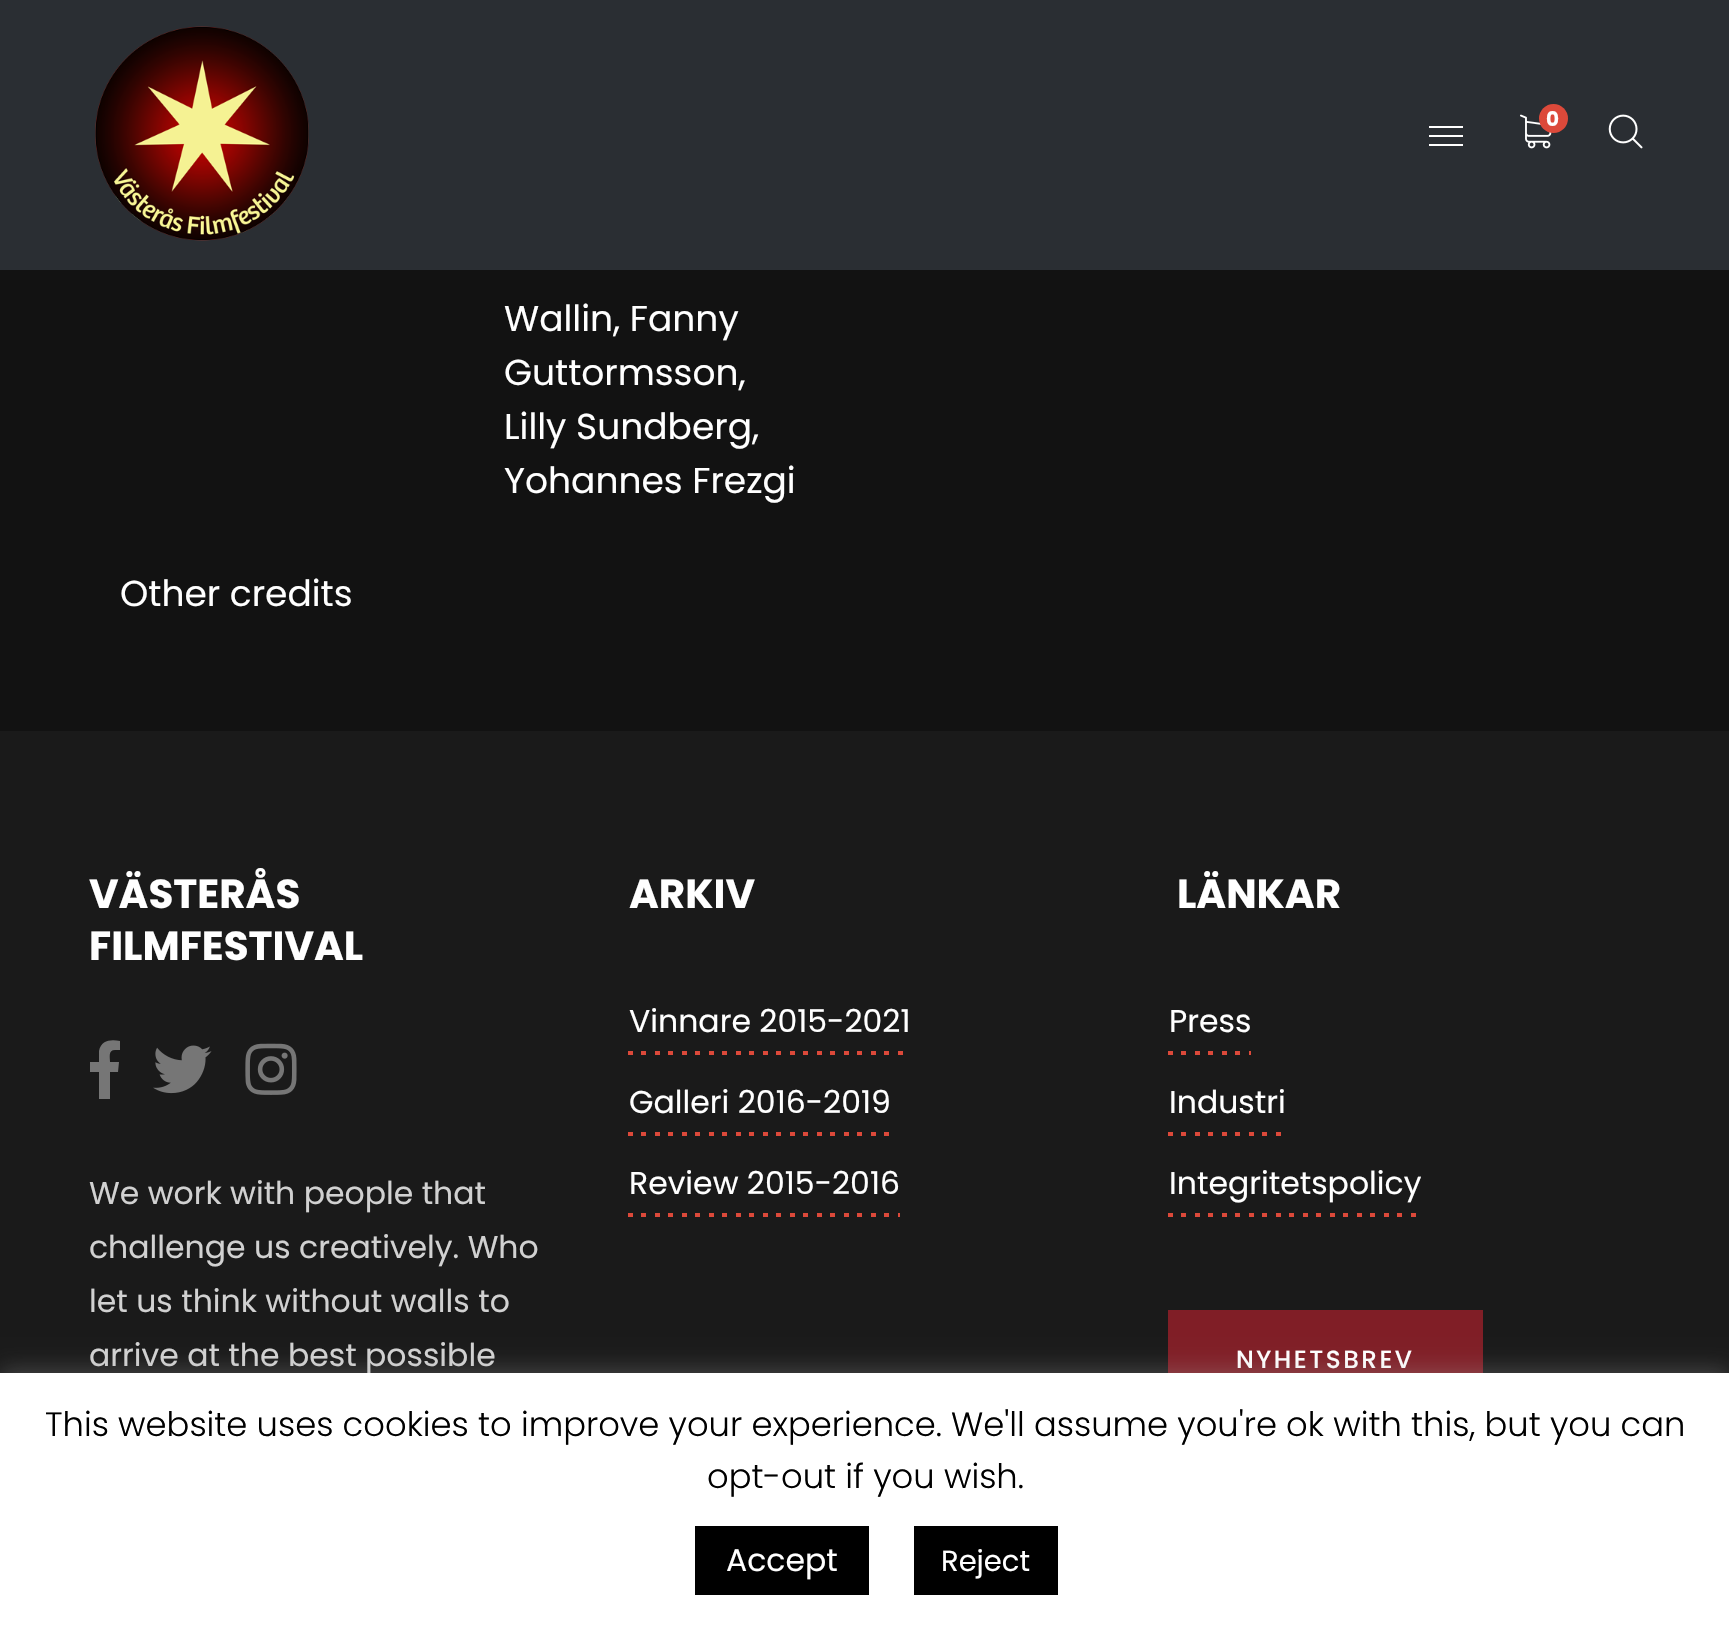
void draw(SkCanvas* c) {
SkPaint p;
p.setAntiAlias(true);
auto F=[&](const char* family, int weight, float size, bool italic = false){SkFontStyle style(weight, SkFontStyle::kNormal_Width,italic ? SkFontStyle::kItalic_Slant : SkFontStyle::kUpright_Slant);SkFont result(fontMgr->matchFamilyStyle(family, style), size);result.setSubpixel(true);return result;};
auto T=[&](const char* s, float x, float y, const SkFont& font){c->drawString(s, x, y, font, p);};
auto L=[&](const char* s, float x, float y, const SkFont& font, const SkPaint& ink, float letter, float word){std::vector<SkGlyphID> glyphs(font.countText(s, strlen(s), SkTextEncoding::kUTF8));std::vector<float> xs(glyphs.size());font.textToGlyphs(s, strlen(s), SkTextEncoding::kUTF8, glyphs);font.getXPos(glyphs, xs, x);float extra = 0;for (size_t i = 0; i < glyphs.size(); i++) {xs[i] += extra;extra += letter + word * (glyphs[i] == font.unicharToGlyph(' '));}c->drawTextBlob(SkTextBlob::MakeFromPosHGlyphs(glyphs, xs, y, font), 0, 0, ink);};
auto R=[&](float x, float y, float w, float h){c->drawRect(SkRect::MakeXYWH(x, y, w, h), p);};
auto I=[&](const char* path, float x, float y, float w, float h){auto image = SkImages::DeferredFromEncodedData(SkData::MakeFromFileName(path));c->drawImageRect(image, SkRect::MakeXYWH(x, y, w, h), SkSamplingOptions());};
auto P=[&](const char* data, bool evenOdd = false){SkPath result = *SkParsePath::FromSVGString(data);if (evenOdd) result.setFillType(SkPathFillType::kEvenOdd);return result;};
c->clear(0xff121212);
p.setColor(0xf22b2f35);
R(0,0,1729,270);
I("1.png",95,26,214,215);
p.setColor(0xffffffff);
R(1429,126,34,2);
R(1429,135,34,2);
R(1429,144,34,2);
I("2.png",1520,114,32,35);
p.setColor(0xffdc493a);
c->drawCircle(1553.5,118.5,14.5,p);
auto f1 = F("Poppins",700,20);
p.setColor(0xffffffff);
T("0",1546,126,f1);
I("3.png",1608,114,35,35);
auto f2 = F("Poppins",400,36);
T("Wallin, Fanny",504,331,f2);
T("Guttormsson,",504,385,f2);
T("Lilly Sundberg,",504,439,f2);
T("Yohannes Frezgi",504,493,f2);
T("Other credits",120,606,f2);
p.setColor(0xff1a1a1a);
R(0,731,1729,642);
auto f3 = F("Poppins",700,40.5);
p.setColor(0xffffffff);
T("VÄSTERÅS",89,908,f3);
T("FILMFESTIVAL",89,960,f3);
p.setColor(0xff767676);
c->drawPath(P("M115 1050c-7 0-5 7-5 12h9l-1 10h-8v27h-11v-27h-9v-10h9v-11c2-11 12-12 21-10v9z"),p);
I("4.png",153,1045,59,49);
I("5.png",245,1043,52,52);
auto f4 = F("Poppins",400,31.5);
p.setColor(0xffd1d1d1);
T("We work with people that",89,1204,f4);
T("challenge us creatively. Who",89,1258,f4);
T("let us think without walls to",89,1312,f4);
T("arrive at the best possible",89,1366,f4);
p.setColor(0xffffffff);
T("ARKIV",629,908,f3);
T("Vinnare 2015-2021",629,1032,f4);
I("6.png",628,1051,275,4);
T("Galleri 2016-2019",629,1113,f4);
p.setColor(0xffdc493a);
R(628,1132,5,4);
R(641,1132,5,4);
R(655,1132,5,4);
R(668,1132,5,4);
R(682,1132,5,4);
R(695,1132,5,4);
R(709,1132,5,4);
R(722,1132,5,4);
R(736,1132,5,4);
R(749,1132,5,4);
R(763,1132,5,4);
R(776,1132,5,4);
R(790,1132,5,4);
R(803,1132,5,4);
R(817,1132,5,4);
R(830,1132,5,4);
R(844,1132,5,4);
R(857,1132,5,4);
R(871,1132,5,4);
R(884,1132,5,4);
p.setColor(0xffffffff);
T("Review 2015-2016",629,1194,f4);
I("7.png",628,1213,272,4);
T("LÄNKAR",1177,908,f3);
T("Press",1169,1032,f4);
p.setColor(0xffdc493a);
R(1168,1051,5,4);
R(1181,1051,5,4);
R(1195,1051,5,4);
R(1208,1051,5,4);
R(1222,1051,5,4);
R(1235,1051,5,4);
R(1249,1051,2,4);
p.setColor(0xffffffff);
T("Industri",1169,1113,f4);
p.setColor(0xffdc493a);
R(1168,1132,5,4);
R(1181,1132,5,4);
R(1195,1132,5,4);
R(1208,1132,5,4);
R(1222,1132,5,4);
R(1235,1132,5,4);
R(1249,1132,5,4);
R(1262,1132,5,4);
R(1276,1132,5,4);
p.setColor(0xffffffff);
T("Integritetspolicy",1169,1194,f4);
p.setColor(0xffdc493a);
R(1168,1213,5,4);
R(1181,1213,5,4);
R(1195,1213,5,4);
R(1208,1213,5,4);
R(1222,1213,5,4);
R(1235,1213,5,4);
R(1249,1213,5,4);
R(1262,1213,5,4);
R(1276,1213,5,4);
R(1289,1213,5,4);
R(1303,1213,5,4);
R(1316,1213,5,4);
R(1330,1213,5,4);
R(1343,1213,5,4);
R(1357,1213,5,4);
R(1370,1213,5,4);
R(1384,1213,5,4);
R(1397,1213,5,4);
R(1411,1213,5,4);
p.setColor(0xff801e26);
R(1168,1310,315,63);
auto f5 = F("Poppins",500,24.75);
p.setColor(0xffffffff);
L("NYHETSBREV",1236,1368,f5,p,2.5,0);
p.setColor(0x4dacabab);
p.setMaskFilter(SkMaskFilter::MakeBlur(kNormal_SkBlurStyle, 11));
c->drawRect(SkRect::MakeXYWH(0,1370,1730,273),p);
p.setMaskFilter(nullptr);
p.setColor(0xffffffff);
R(0,1373,1729,271);
auto f6 = F("Poppins",300,33.75);
p.setColor(0xff000000);
T("This website uses cookies to improve your experience. We'll assume you're ok with this, but you can",45,1436,f6);
T("opt-out if you wish.",707,1488,f6);
R(695,1526,174,69);
p.setColor(0xffffffff);
T("Accept",726,1571,f4);
p.setColor(0xff000000);
R(914,1526,144,69);
auto f7 = F("Poppins",400,29);
p.setColor(0xffffffff);
T("Reject",941,1571,f7);
}
